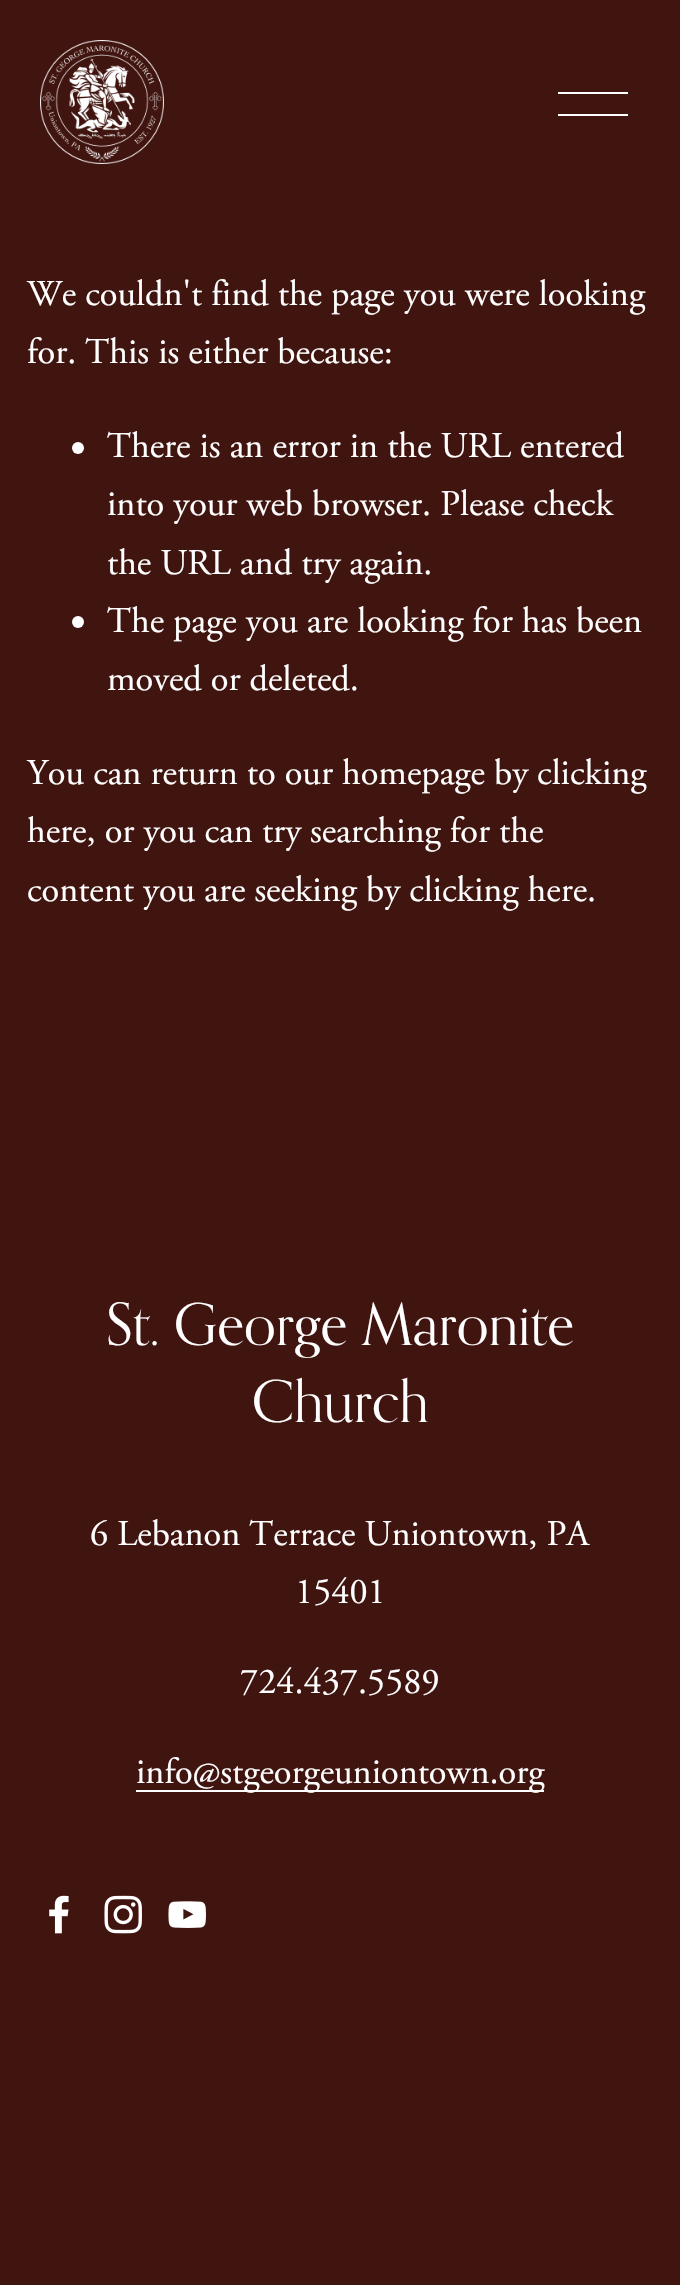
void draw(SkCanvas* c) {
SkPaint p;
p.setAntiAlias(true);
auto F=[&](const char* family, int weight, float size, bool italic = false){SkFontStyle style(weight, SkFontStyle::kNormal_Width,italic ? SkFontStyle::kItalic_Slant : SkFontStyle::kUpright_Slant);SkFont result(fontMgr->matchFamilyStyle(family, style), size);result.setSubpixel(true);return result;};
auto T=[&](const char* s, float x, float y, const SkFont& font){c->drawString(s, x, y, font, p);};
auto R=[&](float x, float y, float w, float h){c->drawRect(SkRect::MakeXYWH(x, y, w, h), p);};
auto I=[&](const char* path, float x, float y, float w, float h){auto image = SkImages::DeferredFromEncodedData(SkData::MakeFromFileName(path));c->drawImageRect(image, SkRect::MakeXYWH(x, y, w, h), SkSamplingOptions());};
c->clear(0xff40140f);
I("1.png",40,40,124,124);
p.setColor(0xffffffff);
R(558,92,70,2);
R(558,114,70,2);
auto f1 = F("Adobe Garamond",400,36.3);
T("We couldn't find the page you were looking",27,305,f1);
T("for. This is either because:",27,363,f1);
c->drawCircle(78,448,6,p);
T("There is an error in the URL entered",107,457,f1);
T("into your web browser. Please check",107,515,f1);
T("the URL and try again.",107,574,f1);
c->drawCircle(78,622,6,p);
T("The page you are looking for has been",107,632,f1);
T("moved or deleted.",107,690,f1);
T("You can return to our homepage by clicking",27,784,f1);
T("here, or you can try searching for the",27,842,f1);
T("content you are seeking by clicking here.",27,901,f1);
auto f2 = F("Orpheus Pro",400,58);
T("St. George Maronite",106,1345,f2);
T("Church",252,1422,f2);
T("6 Lebanon Terrace Uniontown, PA",90,1545,f1);
T("15401",295,1603,f1);
T("724.437.5589",240,1693,f1);
R(136,1790,408,2);
T("info@stgeorgeuniontown.org",136,1783,f1);
I("2.png",49,1895,20,39);
I("3.png",104,1895,38,39);
I("4.png",168,1901,38,27);
}
